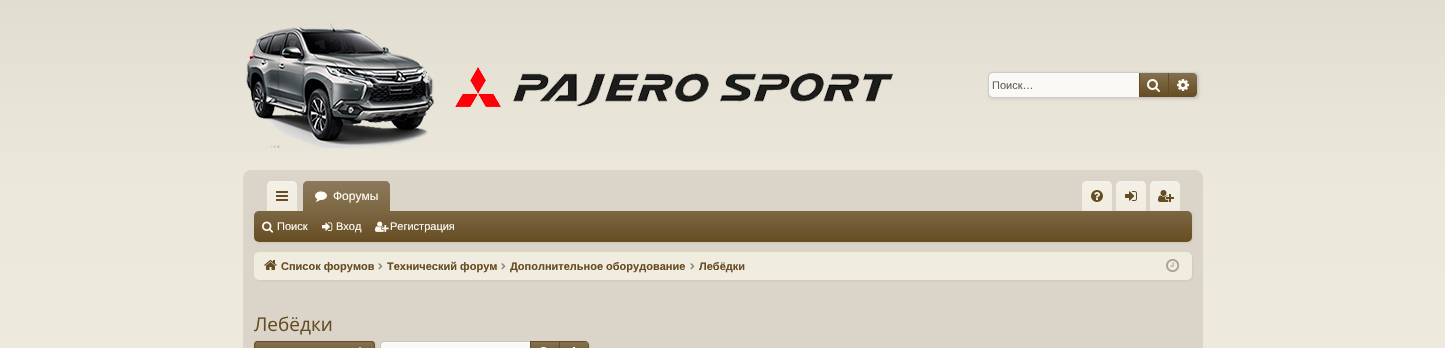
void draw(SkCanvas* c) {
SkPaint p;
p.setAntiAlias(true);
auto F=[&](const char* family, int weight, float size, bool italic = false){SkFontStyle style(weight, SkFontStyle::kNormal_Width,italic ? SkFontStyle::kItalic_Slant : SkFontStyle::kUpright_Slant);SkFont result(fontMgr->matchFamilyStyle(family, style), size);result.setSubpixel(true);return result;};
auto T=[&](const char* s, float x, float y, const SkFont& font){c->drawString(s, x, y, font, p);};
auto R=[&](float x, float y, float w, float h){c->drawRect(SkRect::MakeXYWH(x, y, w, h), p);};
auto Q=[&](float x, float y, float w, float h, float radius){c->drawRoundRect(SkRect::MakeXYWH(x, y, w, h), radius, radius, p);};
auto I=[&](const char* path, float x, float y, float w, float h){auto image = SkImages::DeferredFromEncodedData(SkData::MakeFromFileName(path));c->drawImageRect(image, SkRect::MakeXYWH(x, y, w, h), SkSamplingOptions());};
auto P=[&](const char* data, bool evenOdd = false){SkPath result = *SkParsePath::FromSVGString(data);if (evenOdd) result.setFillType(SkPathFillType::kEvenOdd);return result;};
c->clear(0xffffffff);
{
const SkColor colors[] = {0xffe2ddd1,0xffece9dc,0xfff0eee0};
const float stops[] = {0,.22,1};
const SkPoint ends[] = {{723,0}, {723,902}};
p.setShader(SkGradientShader::MakeLinear(ends, colors, stops, 3, SkTileMode::kClamp));
p.setAlpha(255);
}
R(0,0,1445,348);
I("1.png",246,23,647,125);
p.setShader(nullptr);
p.setColor(0x1a000000);
p.setMaskFilter(SkMaskFilter::MakeBlur(kNormal_SkBlurStyle, 1.5));
c->drawRoundRect(SkRect::MakeXYWH(989,73,210,26),4,4,p);
p.setMaskFilter(nullptr);
p.setStroke(true);
p.setStrokeWidth(1);
p.setColor(0xffcccccc);
c->drawRoundRect(SkRect::MakeXYWH(988.5,72.5,209,25),3.5,3.5,p);
p.setStroke(false);
p.setColor(0xfffbf9f6);
c->drawPath(P("M993 73h146v24h-146c-2 0-4-2-4-4v-16c0-2 2-4 4-4z"),p);
auto f1 = F("Liberation Sans",400,11);
p.setColor(0xff675e4f);
T("Поиск…",992,89,f1);
p.setColor(0x1a654c22);
p.setMaskFilter(SkMaskFilter::MakeBlur(kNormal_SkBlurStyle, 1.5));
c->drawRect(SkRect::MakeXYWH(1140,74,30,24),p);
p.setMaskFilter(nullptr);
{
const SkColor colors[] = {0xff84704e,0xff654c22};
const float stops[] = {0,1};
const SkPoint ends[] = {{1154,73}, {1154,97}};
p.setShader(SkGradientShader::MakeLinear(ends, colors, stops, 2, SkTileMode::kClamp));
p.setAlpha(255);
}
R(1140,73,28,24);
p.setShader(nullptr);
p.setColor(0xff654c22);
R(1168,73,1,24);
R(1139,73,1,24);
I("2.png",1147,79,13,13);
p.setColor(0x1a654c22);
p.setMaskFilter(SkMaskFilter::MakeBlur(kNormal_SkBlurStyle, 1.5));
c->drawRoundRect(SkRect::MakeXYWH(1170,74,28,24),4,4,p);
p.setMaskFilter(nullptr);
p.setColor(0xff654c22);
c->drawPath(P("M1169 73h24c2 0 4 2 4 4v16c0 2-2 4-4 4h-24z"),p);
{
const SkColor colors[] = {0x33ffffff,0x00ffffff};
const float stops[] = {0,1};
const SkPoint ends[] = {{1183,73}, {1183,97}};
p.setShader(SkGradientShader::MakeLinear(ends, colors, stops, 2, SkTileMode::kClamp));
p.setAlpha(255);
}
c->drawPath(P("M1169 73h24c2 0 4 2 4 4v16c0 2-2 4-4 4h-24z"),p);
I("3.png",1177,79,12,12);
p.setShader(nullptr);
p.setColor(0xffdbd5c9);
c->drawRoundRect(SkRect::MakeXYWH(243.5,170.5,959,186),7.5,7.5,p);
p.setStroke(true);
c->drawRoundRect(SkRect::MakeXYWH(243.5,170.5,959,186),7.5,7.5,p);
p.setStroke(false);
p.setColor(0xfff0ece0);
c->drawPath(P("M272 181h20c3 0 5 2 5 5v25h-30v-25c0-3 2-5 5-5z"),p);
{
const SkColor colors[] = {0x40ffffff,0x00ffffff};
const float stops[] = {0,1};
const SkPoint ends[] = {{282,181}, {282,211}};
p.setShader(SkGradientShader::MakeLinear(ends, colors, stops, 2, SkTileMode::kClamp));
p.setAlpha(255);
}
c->drawPath(P("M272 181h20c3 0 5 2 5 5v25h-30v-25c0-3 2-5 5-5z"),p);
I("4.png",276,191,12,10);
p.setShader(nullptr);
p.setColor(0xff654c22);
c->drawPath(P("M308 181h77c3 0 5 2 5 5v25h-87v-25c0-3 2-5 5-5z"),p);
{
const SkColor colors[] = {0x40ffffff,0x26ffffff};
const float stops[] = {0,1};
const SkPoint ends[] = {{347,181}, {347,211}};
p.setShader(SkGradientShader::MakeLinear(ends, colors, stops, 2, SkTileMode::kClamp));
p.setAlpha(255);
}
c->drawPath(P("M308 181h77c3 0 5 2 5 5v25h-87v-25c0-3 2-5 5-5z"),p);
I("5.png",315,191,12,11);
auto f2 = F("Liberation Sans",400,12);
p.setShader(nullptr);
p.setColor(0xfffefbf5);
T("Форумы",333,200,f2);
p.setColor(0xfff0ece0);
c->drawPath(P("M1087 181h20c3 0 5 2 5 5v25h-30v-25c0-3 2-5 5-5z"),p);
{
const SkColor colors[] = {0x40ffffff,0x00ffffff};
const float stops[] = {0,1};
const SkPoint ends[] = {{1097,181}, {1097,211}};
p.setShader(SkGradientShader::MakeLinear(ends, colors, stops, 2, SkTileMode::kClamp));
p.setAlpha(255);
}
c->drawPath(P("M1087 181h20c3 0 5 2 5 5v25h-30v-25c0-3 2-5 5-5z"),p);
p.setShader(nullptr);
p.setColor(0xfff0ece0);
c->drawPath(P("M1121 181h20c3 0 5 2 5 5v25h-30v-25c0-3 2-5 5-5z"),p);
{
const SkColor colors[] = {0x40ffffff,0x00ffffff};
const float stops[] = {0,1};
const SkPoint ends[] = {{1131,181}, {1131,211}};
p.setShader(SkGradientShader::MakeLinear(ends, colors, stops, 2, SkTileMode::kClamp));
p.setAlpha(255);
}
c->drawPath(P("M1121 181h20c3 0 5 2 5 5v25h-30v-25c0-3 2-5 5-5z"),p);
p.setShader(nullptr);
p.setColor(0xfff0ece0);
c->drawPath(P("M1155 181h20c3 0 5 2 5 5v25h-30v-25c0-3 2-5 5-5z"),p);
{
const SkColor colors[] = {0x40ffffff,0x00ffffff};
const float stops[] = {0,1};
const SkPoint ends[] = {{1165,181}, {1165,211}};
p.setShader(SkGradientShader::MakeLinear(ends, colors, stops, 2, SkTileMode::kClamp));
p.setAlpha(255);
}
c->drawPath(P("M1155 181h20c3 0 5 2 5 5v25h-30v-25c0-3 2-5 5-5z"),p);
p.setShader(nullptr);
p.setColor(0x1a654c22);
p.setMaskFilter(SkMaskFilter::MakeBlur(kNormal_SkBlurStyle, 1.5));
c->drawRoundRect(SkRect::MakeXYWH(255,212,938,31),5,5,p);
p.setMaskFilter(nullptr);
p.setColor(0xff654c22);
Q(254,211,938,31,5);
{
const SkColor colors[] = {0x26ffffff,0x00ffffff};
const float stops[] = {0,1};
const SkPoint ends[] = {{723,211}, {723,242}};
p.setShader(SkGradientShader::MakeLinear(ends, colors, stops, 2, SkTileMode::kClamp));
p.setAlpha(255);
}
Q(254,211,938,31,5);
p.setShader(nullptr);
p.setColor(0xff654c22);
c->drawPath(P("M305 210h83c1 0 2 1 2 2h-87c0-1 1-2 2-2z"),p);
p.setColor(0x26ffffff);
c->drawPath(P("M305 210h83c1 0 2 1 2 2h-87c0-1 1-2 2-2z"),p);
I("6.png",1091,190,12,12);
I("7.png",1125,191,12,10);
I("8.png",1158,190,16,12);
I("9.png",262,221,12,12);
p.setColor(0xfffefbf5);
T("Поиск",277,230,f1);
I("10.png",322,222,11,9);
T("Вход",336,230,f1);
I("11.png",375,221,14,11);
T("Регистрация",390,230,f1);
p.setColor(0x1a654c22);
p.setMaskFilter(SkMaskFilter::MakeBlur(kNormal_SkBlurStyle, 1.5));
c->drawRoundRect(SkRect::MakeXYWH(255,253,938,28),5,5,p);
p.setMaskFilter(nullptr);
p.setColor(0xfff0ece0);
Q(254,252,938,28,5);
I("12.png",264,260,13,10);
auto f3 = F("Liberation Sans",700,11);
p.setColor(0xff654c22);
T("Список форумов",281,270,f3);
I("13.png",378,263,5,7);
T("Технический форум",387,270,f3);
I("13.png",501,263,5,7);
T("Дополнительное оборудование",510,270,f3);
I("13.png",690,263,5,7);
T("Лебёдки",699,270,f3);
I("14.png",1166,258,14,15);
auto f4 = F("Open Sans",400,19);
T("Лебёдки",254,331,f4);
p.setColor(0x1a654c22);
p.setMaskFilter(SkMaskFilter::MakeBlur(kNormal_SkBlurStyle, 1.5));
c->drawRoundRect(SkRect::MakeXYWH(255,342,121,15),4,4,p);
p.setMaskFilter(nullptr);
p.setColor(0xff654c22);
Q(254,341,121,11,4);
c->save();
c->clipPath(P("M258 341h113c2 0 4 2 4 4v16c0 2-2 4-4 4h-113c-2 0-4-2-4-4v-16c0-2 2-4 4-4z"),true);
{
const SkColor colors[] = {0x33ffffff,0x00ffffff};
const float stops[] = {0,1};
const SkPoint ends[] = {{315,342}, {315,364}};
p.setShader(SkGradientShader::MakeLinear(ends, colors, stops, 2, SkTileMode::kClamp));
p.setAlpha(255);
}
R(254,342,121,6);
c->restore();
p.setStroke(true);
p.setShader(nullptr);
p.setColor(0xff654c22);
c->drawRoundRect(SkRect::MakeXYWH(254.5,341.5,120,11),3.5,3.5,p);
I("15.png",358,347,4,1);
p.setStroke(false);
p.setColor(0xfffbf9f6);
c->drawPath(P("M384 342h146v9h-146c-1.5 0-3-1.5-3-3v-3c0-1.5 1.5-3 3-3z"),p);
p.setColor(0xffc6c6c6);
c->drawPath(P("M384 341h146v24h-146c-2 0-4-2-4-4v-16c0-2 2-4 4-4zm0 1h146v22h-146c-2 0-3-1-3-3v-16c0-2 1-3 3-3z",true),p);
{
const SkColor colors[] = {0xff84704e,0xff654c22};
const float stops[] = {0,1};
const SkPoint ends[] = {{545,342}, {545,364}};
p.setShader(SkGradientShader::MakeLinear(ends, colors, stops, 2, SkTileMode::kClamp));
p.setAlpha(255);
}
R(530,342,30,6);
p.setStroke(true);
p.setShader(nullptr);
p.setColor(0xff654c22);
c->drawRect(SkRect::MakeXYWH(530.5,341.5,29,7),p);
I("16.png",540,347,7,1);
p.setStroke(false);
p.setColor(0x1a654c22);
p.setMaskFilter(SkMaskFilter::MakeBlur(kNormal_SkBlurStyle, 1.5));
c->drawRoundRect(SkRect::MakeXYWH(561,342,29,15),4,4,p);
p.setMaskFilter(nullptr);
p.setColor(0xff654c22);
c->drawPath(P("M560 342h25c1.5 0 3 1.5 3 3v3c0 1.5-1.5 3-3 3h-25z"),p);
{
const SkColor colors[] = {0x33ffffff,0x00ffffff};
const float stops[] = {0,1};
const SkPoint ends[] = {{574,342}, {574,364}};
p.setShader(SkGradientShader::MakeLinear(ends, colors, stops, 2, SkTileMode::kClamp));
p.setAlpha(255);
}
c->drawPath(P("M560 342h25c1.5 0 3 1.5 3 3v3c0 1.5-1.5 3-3 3h-25z"),p);
p.setShader(nullptr);
p.setColor(0xff654c22);
c->drawPath(P("M560 341h25c2 0 4 2 4 4v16c0 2-2 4-4 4h-25zm0 1h25c1.5 0 3 1.5 3 3v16c0 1.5-1.5 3-3 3h-25z",true),p);
I("17.png",572,347,4,1);
}
